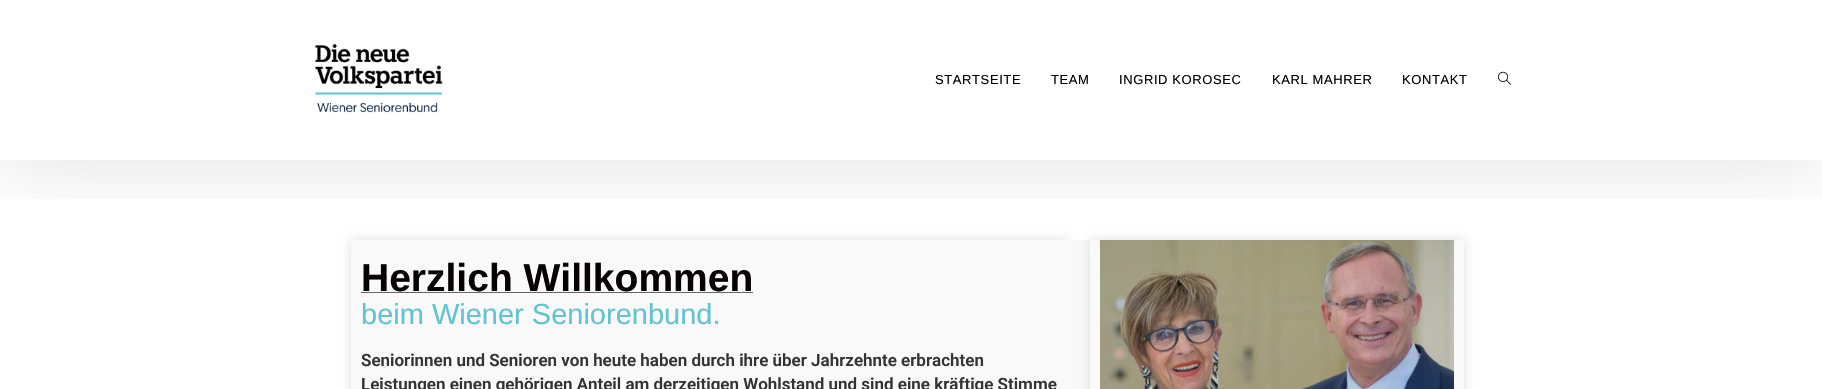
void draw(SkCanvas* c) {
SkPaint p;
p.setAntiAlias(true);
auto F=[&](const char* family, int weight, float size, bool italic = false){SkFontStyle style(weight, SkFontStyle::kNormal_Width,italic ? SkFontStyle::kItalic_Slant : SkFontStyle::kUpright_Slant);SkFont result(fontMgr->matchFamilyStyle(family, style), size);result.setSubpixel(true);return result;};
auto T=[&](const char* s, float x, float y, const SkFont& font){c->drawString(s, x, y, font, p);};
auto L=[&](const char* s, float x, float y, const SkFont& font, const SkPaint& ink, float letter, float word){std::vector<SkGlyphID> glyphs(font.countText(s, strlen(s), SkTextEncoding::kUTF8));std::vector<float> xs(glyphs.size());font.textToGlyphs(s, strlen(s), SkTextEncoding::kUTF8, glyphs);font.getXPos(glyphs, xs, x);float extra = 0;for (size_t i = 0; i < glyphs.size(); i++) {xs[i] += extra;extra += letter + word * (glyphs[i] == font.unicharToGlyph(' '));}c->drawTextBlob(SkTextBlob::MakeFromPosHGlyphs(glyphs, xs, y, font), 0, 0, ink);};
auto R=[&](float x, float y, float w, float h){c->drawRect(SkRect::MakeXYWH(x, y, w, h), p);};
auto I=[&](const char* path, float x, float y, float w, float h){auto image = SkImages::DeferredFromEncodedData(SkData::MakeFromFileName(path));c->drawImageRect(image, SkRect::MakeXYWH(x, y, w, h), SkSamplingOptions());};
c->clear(0xffffffff);
p.setColor(0x1f000000);
p.setMaskFilter(SkMaskFilter::MakeBlur(kNormal_SkBlurStyle, 5));
c->drawRect(SkRect::MakeXYWH(351,240,717,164),p);
p.setMaskFilter(nullptr);
p.setColor(0xfff9f9f9);
R(351,240,739,149);
p.setColor(0x1f000000);
p.setMaskFilter(SkMaskFilter::MakeBlur(kNormal_SkBlurStyle, 5));
c->drawRect(SkRect::MakeXYWH(1090,240,374,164),p);
p.setMaskFilter(nullptr);
p.setColor(0xfff9f9f9);
R(1090,240,374,149);
I("3.png",1100,240,354,149);
c->save();
c->clipRect(SkRect::MakeXYWH(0,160,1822,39));
p.setColor(0x1f000000);
p.setMaskFilter(SkMaskFilter::MakeBlur(kNormal_SkBlurStyle, 40));
c->drawRect(SkRect::MakeXYWH(0,0,1822,160),p);
p.setMaskFilter(nullptr);
c->restore();
I("1.png",315,43,128,70);
auto f1 = F("Liberation Sans",400,13);
p.setColor(0xff000000);
L("STARTSEITE",935,84,f1,p,.6,0);
L("TEAM",1051,84,f1,p,.6,0);
L("INGRID KOROSEC",1119,84,f1,p,.6,0);
L("KARL MAHRER",1272,84,f1,p,.6,0);
L("KONTAKT",1402,84,f1,p,.6,0);
I("2.png",1498,71,13,14);
auto f2 = F("Liberation Sans",700,39);
p.setColor(0xff070303);
T("Herzlich Willkommen",361,291,f2);
p.setColor(0xff666666);
R(361,292,392,1);
auto f3 = F("Liberation Sans",400,29);
p.setColor(0xff63c3d1);
T("beim Wiener Seniorenbund.",361,324,f3);
auto f4 = F("Roboto",600,17);
p.setColor(0xff333333);
T("Seniorinnen und Senioren von heute haben durch ihre über Jahrzehnte erbrachten",361,366,f4);
T("Leistungen einen gehörigen Anteil am derzeitigen Wohlstand und sind eine kräftige Stimme",361,390,f4);
}
